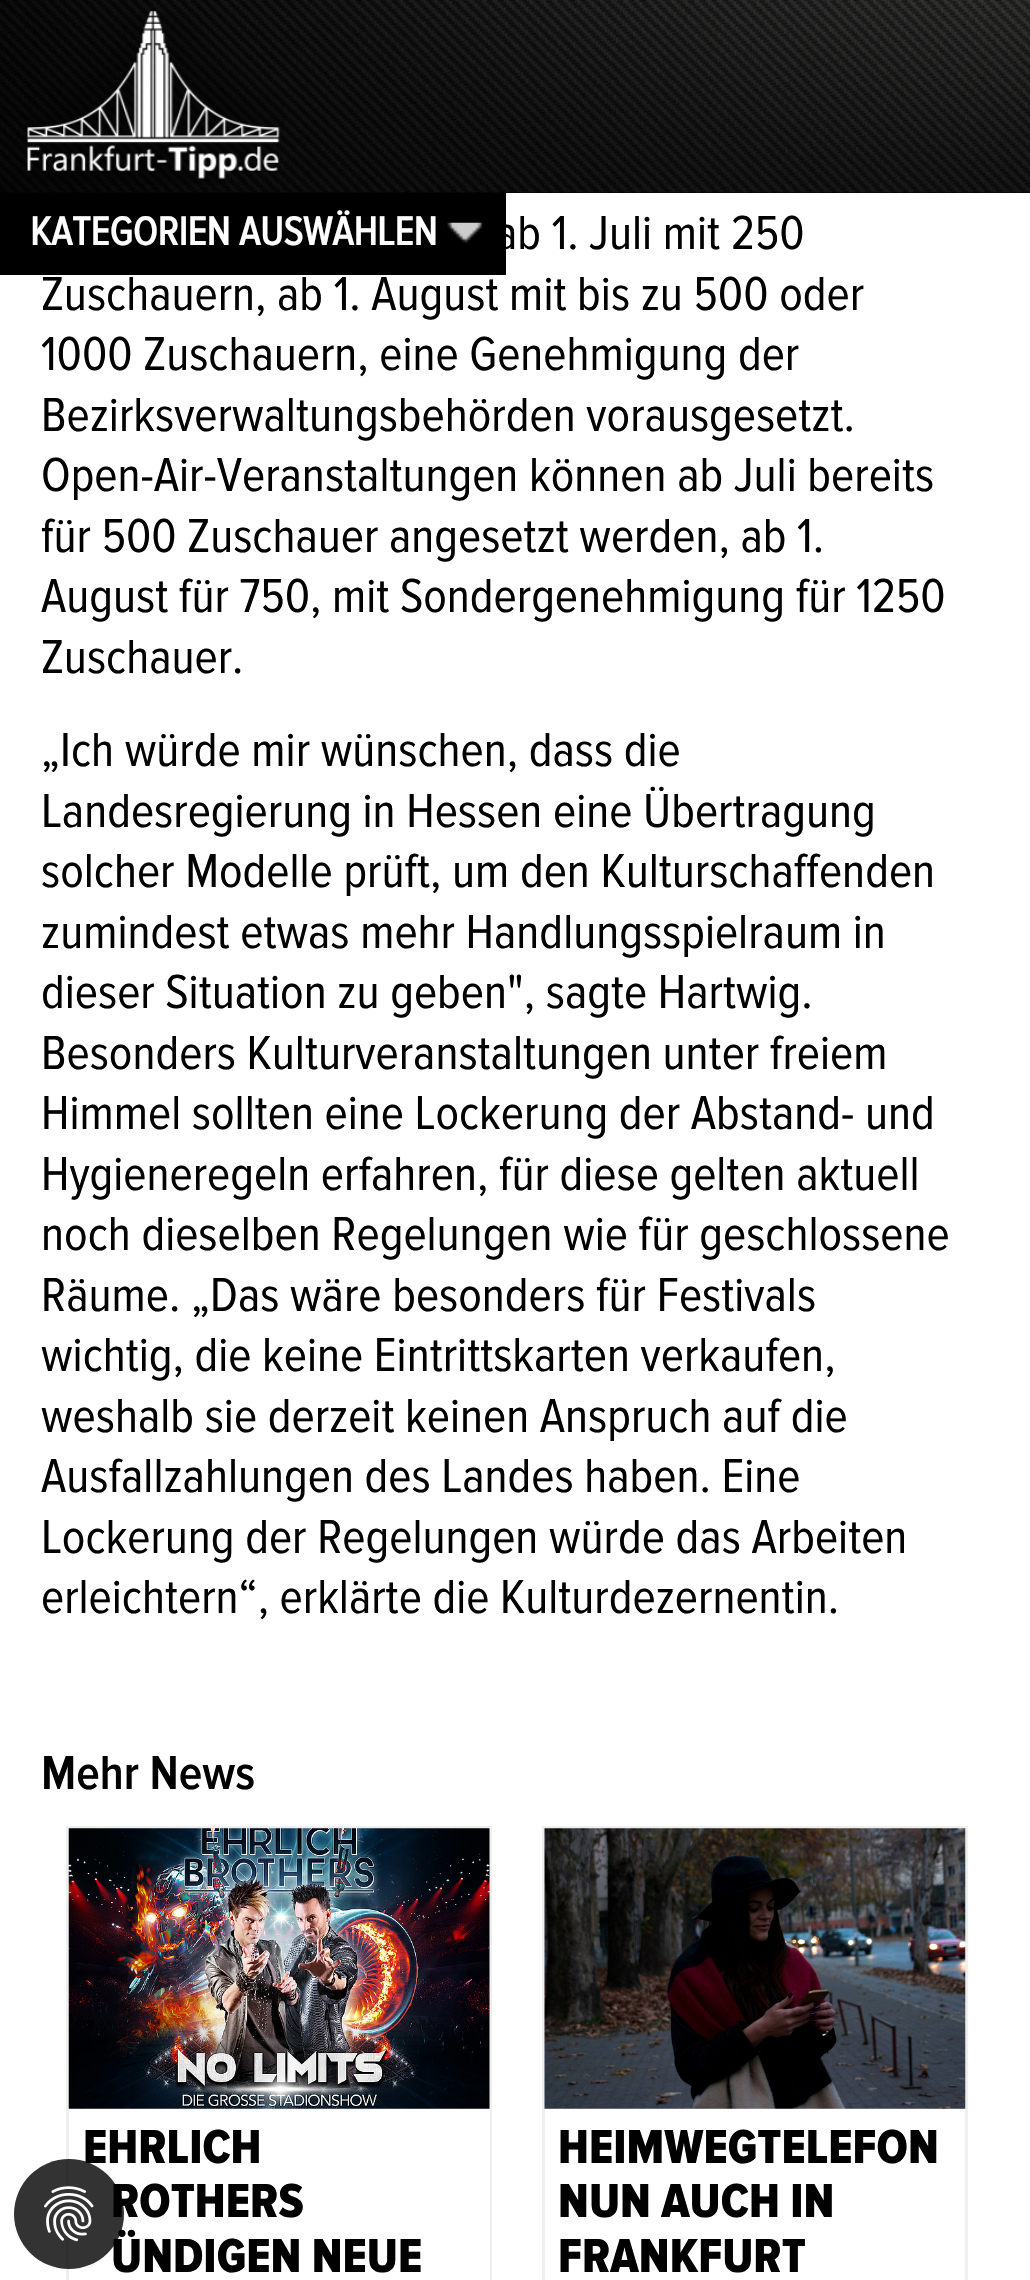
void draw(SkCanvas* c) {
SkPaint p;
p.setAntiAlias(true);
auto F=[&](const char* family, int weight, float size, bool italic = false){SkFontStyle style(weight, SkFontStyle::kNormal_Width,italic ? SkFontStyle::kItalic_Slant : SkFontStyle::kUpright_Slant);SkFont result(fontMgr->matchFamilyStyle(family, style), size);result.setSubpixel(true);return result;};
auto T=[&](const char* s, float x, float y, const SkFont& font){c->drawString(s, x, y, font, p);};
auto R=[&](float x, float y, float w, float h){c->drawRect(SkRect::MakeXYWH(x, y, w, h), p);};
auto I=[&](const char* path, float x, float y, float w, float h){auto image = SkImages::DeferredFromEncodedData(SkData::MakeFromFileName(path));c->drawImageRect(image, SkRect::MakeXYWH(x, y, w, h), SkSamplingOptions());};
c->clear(0xffffffff);
p.setColor(0xff000000);
R(0,192,1030,1);
I("1.png",0,0,1030,193);
I("2.png",27,11,257,174);
auto f1 = F("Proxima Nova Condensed",400,49.5);
p.setColor(0xff010101);
T("ab 1. Juli mit 250",495,249,f1);
p.setColor(0xff000000);
R(0,193,506,82);
I("3.png",447,222,36,21);
auto f2 = F("Proxima Nova Condensed",700,41.25);
p.setColor(0xffffffff);
T("KATEGORIEN AUSWÄHLEN",30,245,f2);
p.setColor(0xff010101);
T("Zuschauern, ab 1. August mit bis zu 500 oder",41,310,f1);
T("1000 Zuschauern, eine Genehmigung der",41,370,f1);
T("Bezirksverwaltungsbehörden vorausgesetzt.",41,431,f1);
T("Open-Air-Veranstaltungen können ab Juli bereits",41,491,f1);
T("für 500 Zuschauer angesetzt werden, ab 1.",41,552,f1);
T("August für 750, mit Sondergenehmigung für 1250",41,612,f1);
T("Zuschauer.",41,673,f1);
T("„Ich würde mir wünschen, dass die",41,766,f1);
T("Landesregierung in Hessen eine Übertragung",41,827,f1);
T("solcher Modelle prüft, um den Kulturschaffenden",41,887,f1);
T("zumindest etwas mehr Handlungsspielraum in",41,948,f1);
T("dieser Situation zu geben\", sagte Hartwig.",41,1008,f1);
T("Besonders Kulturveranstaltungen unter freiem",41,1069,f1);
T("Himmel sollten eine Lockerung der Abstand- und",41,1129,f1);
T("Hygieneregeln erfahren, für diese gelten aktuell",41,1190,f1);
T("noch dieselben Regelungen wie für geschlossene",41,1250,f1);
T("Räume. „Das wäre besonders für Festivals",41,1311,f1);
T("wichtig, die keine Eintrittskarten verkaufen,",41,1371,f1);
T("weshalb sie derzeit keinen Anspruch auf die",41,1432,f1);
T("Ausfallzahlungen des Landes haben. Eine",41,1492,f1);
T("Lockerung der Regelungen würde das Arbeiten",41,1553,f1);
T("erleichtern“, erklärte die Kulturdezernentin.",41,1613,f1);
auto f3 = F("Proxima Nova Condensed",600,49.5);
T("Mehr News",41,1789,f3);
p.setStroke(true);
p.setStrokeWidth(3);
p.setColor(0xffefefef);
c->drawRect(SkRect::MakeXYWH(67.5,1827.5,423,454),p);
I("4.png",68,1828,422,281);
p.setStroke(false);
p.setColor(0xffffffff);
R(489,2109,1,171);
auto f4 = F("Proxima Nova Condensed",800,49.5);
p.setColor(0xff010101);
T("EHRLICH",83,2163,f4);
T("ROTHERS",111,2217,f4);
T("ÜNDIGEN NEUE",111,2272,f4);
p.setStroke(true);
p.setColor(0xffefefef);
c->drawRect(SkRect::MakeXYWH(543.5,1827.5,423,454),p);
I("5.png",544,1828,422,281);
p.setStroke(false);
p.setColor(0xff010101);
T("HEIMWEGTELEFON",558,2163,f4);
T("NUN AUCH IN",558,2217,f4);
T("FRANKFURT",558,2272,f4);
p.setColor(0xcc000000);
c->drawCircle(69,2214,55,p);
I("6.png",44,2186,50,56);
}
